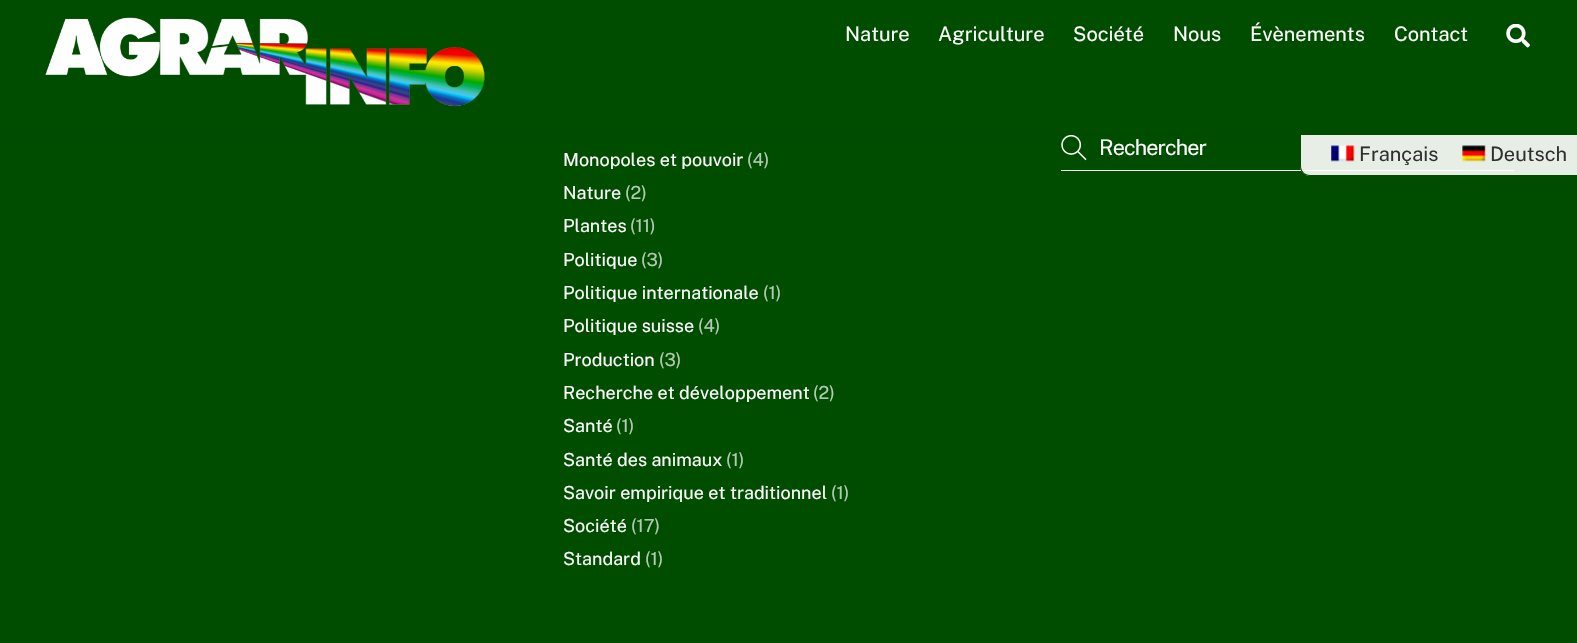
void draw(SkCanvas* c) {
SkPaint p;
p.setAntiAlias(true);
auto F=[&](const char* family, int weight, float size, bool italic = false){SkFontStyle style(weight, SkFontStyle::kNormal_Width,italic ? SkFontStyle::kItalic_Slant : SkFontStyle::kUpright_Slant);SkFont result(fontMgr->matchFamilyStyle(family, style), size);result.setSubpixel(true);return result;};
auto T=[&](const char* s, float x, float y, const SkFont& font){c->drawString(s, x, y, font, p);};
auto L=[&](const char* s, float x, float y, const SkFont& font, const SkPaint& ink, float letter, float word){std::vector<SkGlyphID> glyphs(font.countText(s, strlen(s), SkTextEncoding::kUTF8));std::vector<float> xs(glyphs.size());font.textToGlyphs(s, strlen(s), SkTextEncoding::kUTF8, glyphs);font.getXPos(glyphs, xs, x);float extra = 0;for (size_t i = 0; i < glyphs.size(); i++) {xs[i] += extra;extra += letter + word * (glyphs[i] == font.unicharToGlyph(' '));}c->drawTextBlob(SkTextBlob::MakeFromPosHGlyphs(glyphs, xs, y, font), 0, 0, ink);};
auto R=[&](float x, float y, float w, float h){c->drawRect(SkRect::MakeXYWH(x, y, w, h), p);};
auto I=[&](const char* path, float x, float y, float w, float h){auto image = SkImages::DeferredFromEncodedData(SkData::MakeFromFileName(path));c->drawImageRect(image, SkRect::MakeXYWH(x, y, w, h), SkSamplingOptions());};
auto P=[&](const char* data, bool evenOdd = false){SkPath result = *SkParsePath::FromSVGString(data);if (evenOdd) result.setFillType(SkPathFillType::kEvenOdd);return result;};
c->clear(0xff004d00);
p.setColor(0xff004900);
R(0,134,1300,1);
I("1.png",45,17,440,90);
auto f1 = F("Public Sans",400,20);
p.setColor(0xffffffff);
T("Nature",845,41,f1);
T("Agriculture",938,41,f1);
T("Société",1073,41,f1);
T("Nous",1173,41,f1);
T("Évènements",1250,41,f1);
T("Contact",1394,41,f1);
I("2.png",1506,24,24,24);
R(1061,170,453,1);
p.setColor(0xe6ffffff);
c->drawPath(P("M1300 134h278v42h-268c-5.5 0-10-4.5-10-10z"),p);
p.setColor(0xff004d00);
c->drawPath(P("M1300 134h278v42h-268c-6 0-10-4-10-10zm1 1h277v40h-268c-5 0-9-4-9-9z",true),p);
I("3.png",1331,145,24,17);
p.setColor(0xff303030);
T("Français",1359,161,f1);
I("4.png",1462,145,24,17);
T("Deutsch",1490,161,f1);
I("5.png",1061,135,26,26);
auto f2 = F("Public Sans",400,21.5);
p.setColor(0xffffffff);
L("Rechercher",1099,155,f2,p,-.9,0);
auto f3 = F("Public Sans",400,18);
T("Monopoles et pouvoir",563,166,f3);
p.setColor(0xffb3cab3);
T("(4)",747,166,f3);
p.setColor(0xffffffff);
T("Nature",563,199,f3);
p.setColor(0xffb3cab3);
T("(2)",625,199,f3);
p.setColor(0xffffffff);
T("Plantes",563,232,f3);
p.setColor(0xffb3cab3);
T("(11)",630,232,f3);
p.setColor(0xffffffff);
T("Politique",563,266,f3);
p.setColor(0xffb3cab3);
T("(3)",641,266,f3);
p.setColor(0xffffffff);
T("Politique internationale",563,299,f3);
p.setColor(0xffb3cab3);
T("(1)",763,299,f3);
p.setColor(0xffffffff);
T("Politique suisse",563,332,f3);
p.setColor(0xffb3cab3);
T("(4)",698,332,f3);
p.setColor(0xffffffff);
T("Production",563,366,f3);
p.setColor(0xffb3cab3);
T("(3)",659,366,f3);
p.setColor(0xffffffff);
T("Recherche et développement",563,399,f3);
p.setColor(0xffb3cab3);
T("(2)",813,399,f3);
p.setColor(0xffffffff);
T("Santé",563,432,f3);
p.setColor(0xffb3cab3);
T("(1)",616,432,f3);
p.setColor(0xffffffff);
T("Santé des animaux",563,466,f3);
p.setColor(0xffb3cab3);
T("(1)",726,466,f3);
p.setColor(0xffffffff);
T("Savoir empirique et traditionnel",563,499,f3);
p.setColor(0xffb3cab3);
T("(1)",831,499,f3);
p.setColor(0xffffffff);
T("Société",563,532,f3);
p.setColor(0xffb3cab3);
T("(17)",631,532,f3);
p.setColor(0xffffffff);
T("Standard",563,565,f3);
p.setColor(0xffb3cab3);
T("(1)",645,565,f3);
}
